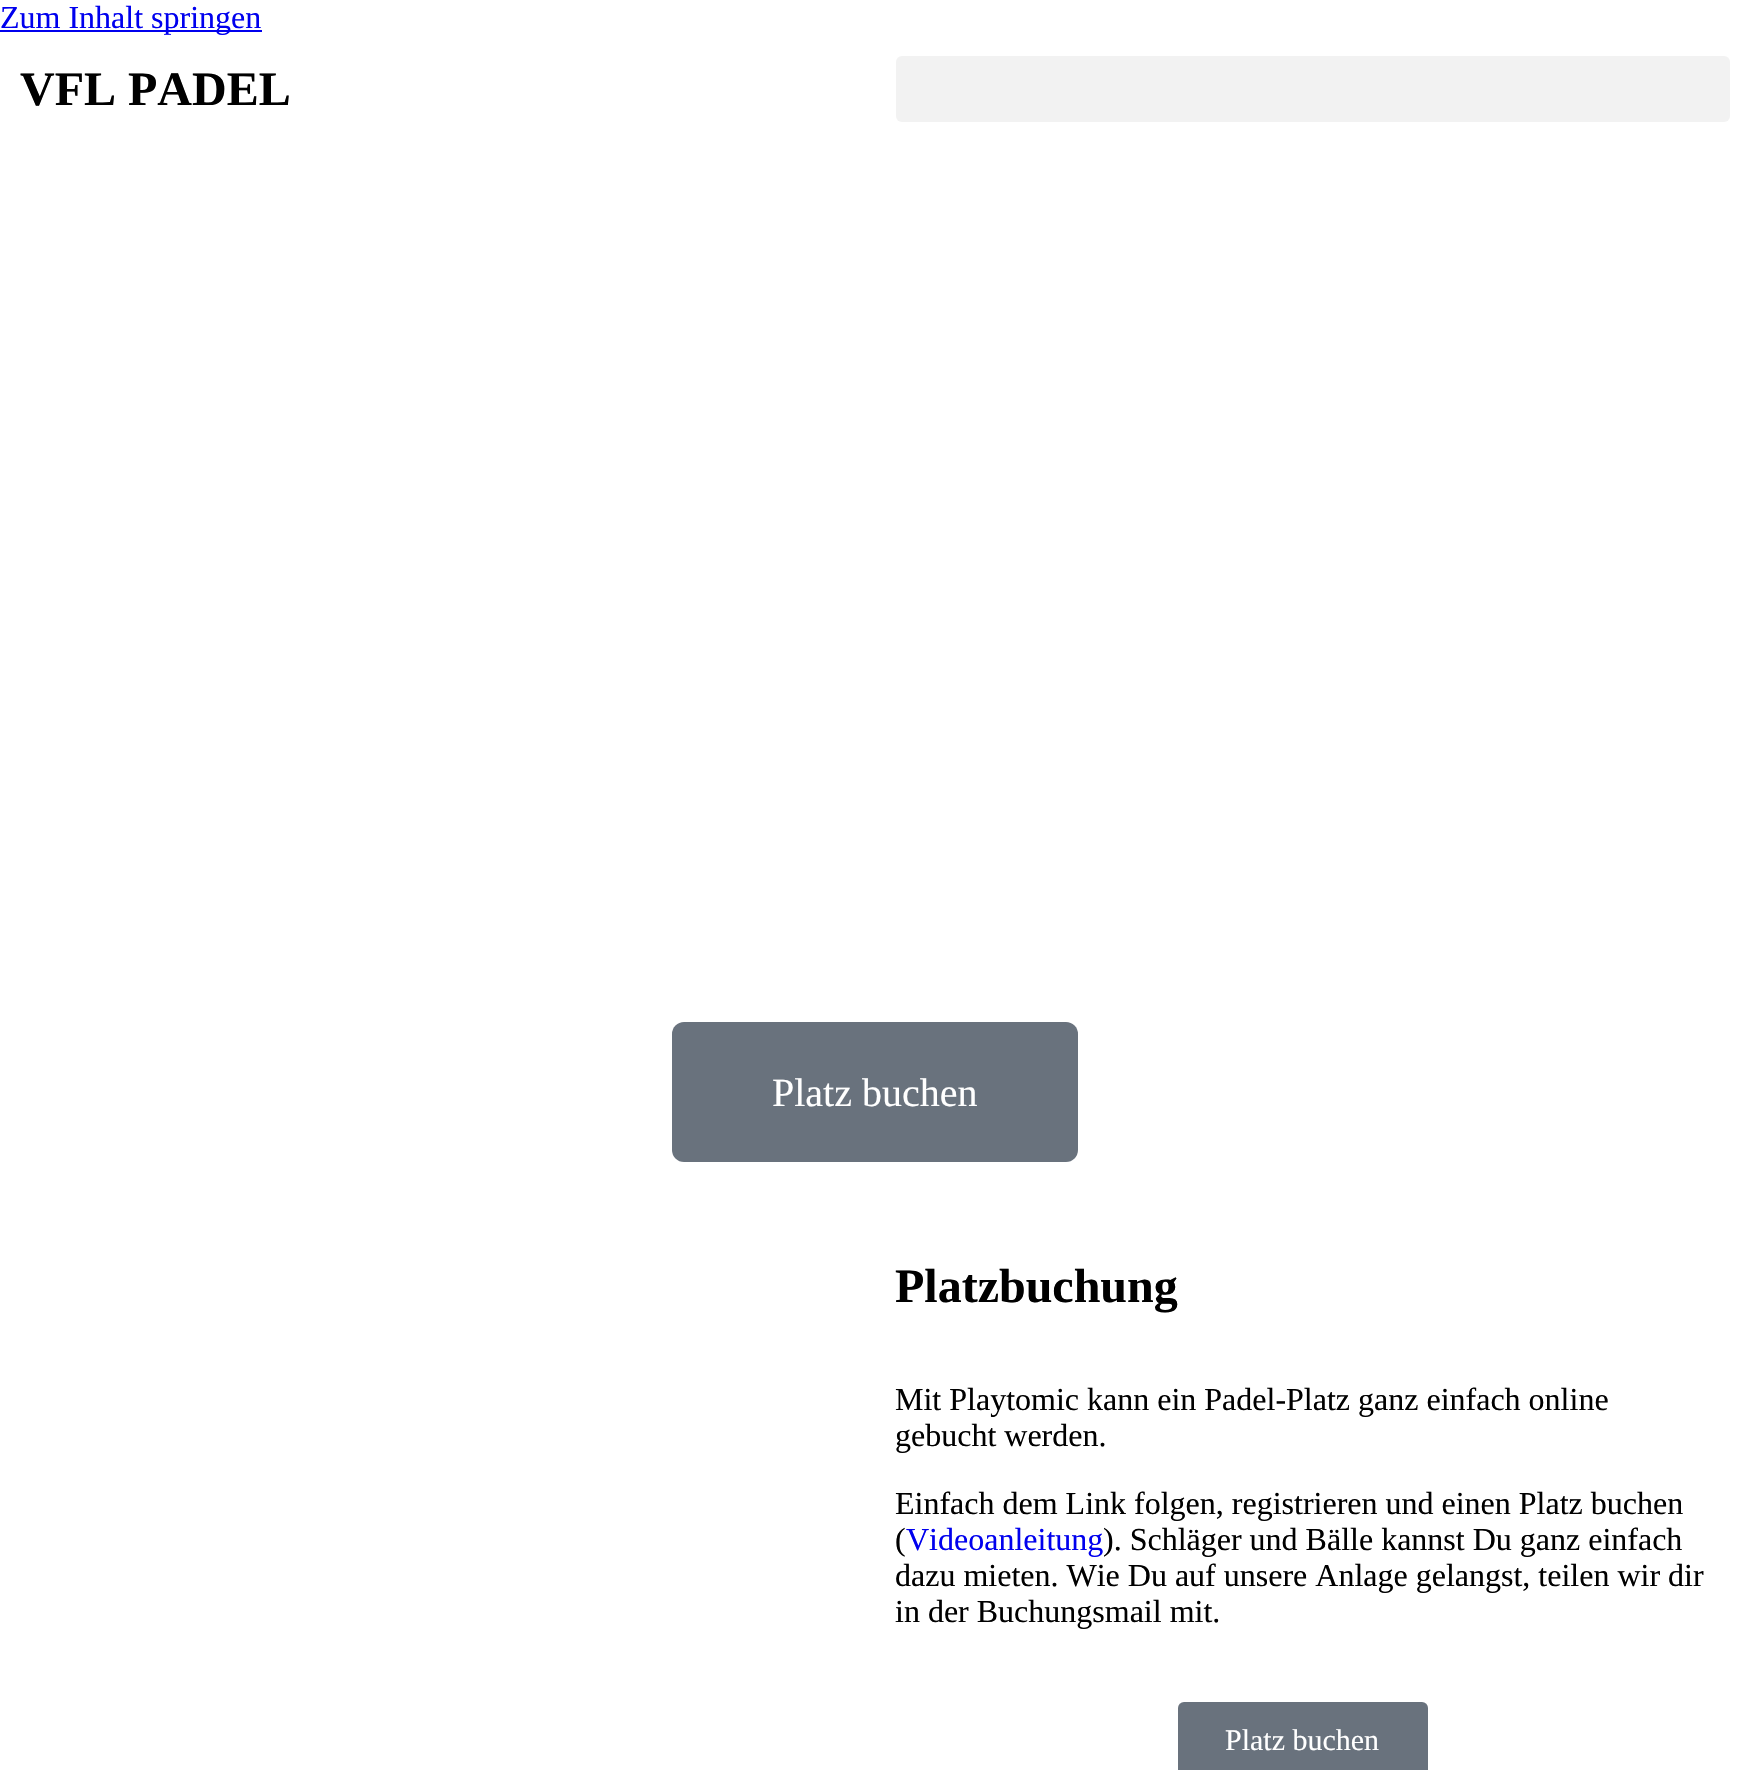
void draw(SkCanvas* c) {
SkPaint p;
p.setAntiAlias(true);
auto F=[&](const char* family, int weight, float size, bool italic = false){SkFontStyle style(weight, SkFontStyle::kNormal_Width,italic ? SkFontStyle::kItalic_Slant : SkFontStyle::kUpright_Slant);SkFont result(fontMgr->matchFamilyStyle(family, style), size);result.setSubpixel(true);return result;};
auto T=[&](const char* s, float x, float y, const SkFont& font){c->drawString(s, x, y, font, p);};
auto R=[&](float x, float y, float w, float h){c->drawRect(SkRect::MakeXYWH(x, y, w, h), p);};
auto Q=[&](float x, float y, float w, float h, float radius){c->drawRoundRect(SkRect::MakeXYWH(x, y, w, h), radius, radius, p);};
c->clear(0xffffffff);
p.setColor(0xff0000ee);
R(0,30,262,2);
auto f1 = F("Liberation Serif",400,32);
T("Zum Inhalt springen",0,28,f1);
auto f2 = F("Liberation Serif",700,48);
p.setColor(0xff000000);
T("VFL PADEL",20,105,f2);
p.setColor(0xfff2f2f2);
Q(896,56,834,66,6);
p.setColor(0xff69727d);
Q(672,1022,406,140,12);
auto f3 = F("Liberation Serif",400,40);
p.setColor(0xffffffff);
T("Platz buchen",772,1106,f3);
p.setColor(0xff000000);
T("Platzbuchung",895,1302,f2);
T("Mit Playtomic kann ein Padel-Platz ganz einfach online",895,1410,f1);
T("gebucht werden.",895,1446,f1);
T("Einfach dem Link folgen, registrieren und einen Platz buchen",895,1514,f1);
T("(",895,1550,f1);
p.setColor(0xff0000ee);
T("Videoanleitung",906,1550,f1);
p.setColor(0xff000000);
T("). Schläger und Bälle kannst Du ganz einfach",1103,1550,f1);
T("dazu mieten. Wie Du auf unsere Anlage gelangst, teilen wir dir",895,1586,f1);
T("in der Buchungsmail mit.",895,1622,f1);
p.setColor(0xff69727d);
Q(1178,1702,250,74,6);
auto f4 = F("Liberation Serif",400,30);
p.setColor(0xffffffff);
T("Platz buchen",1225,1750,f4);
}
